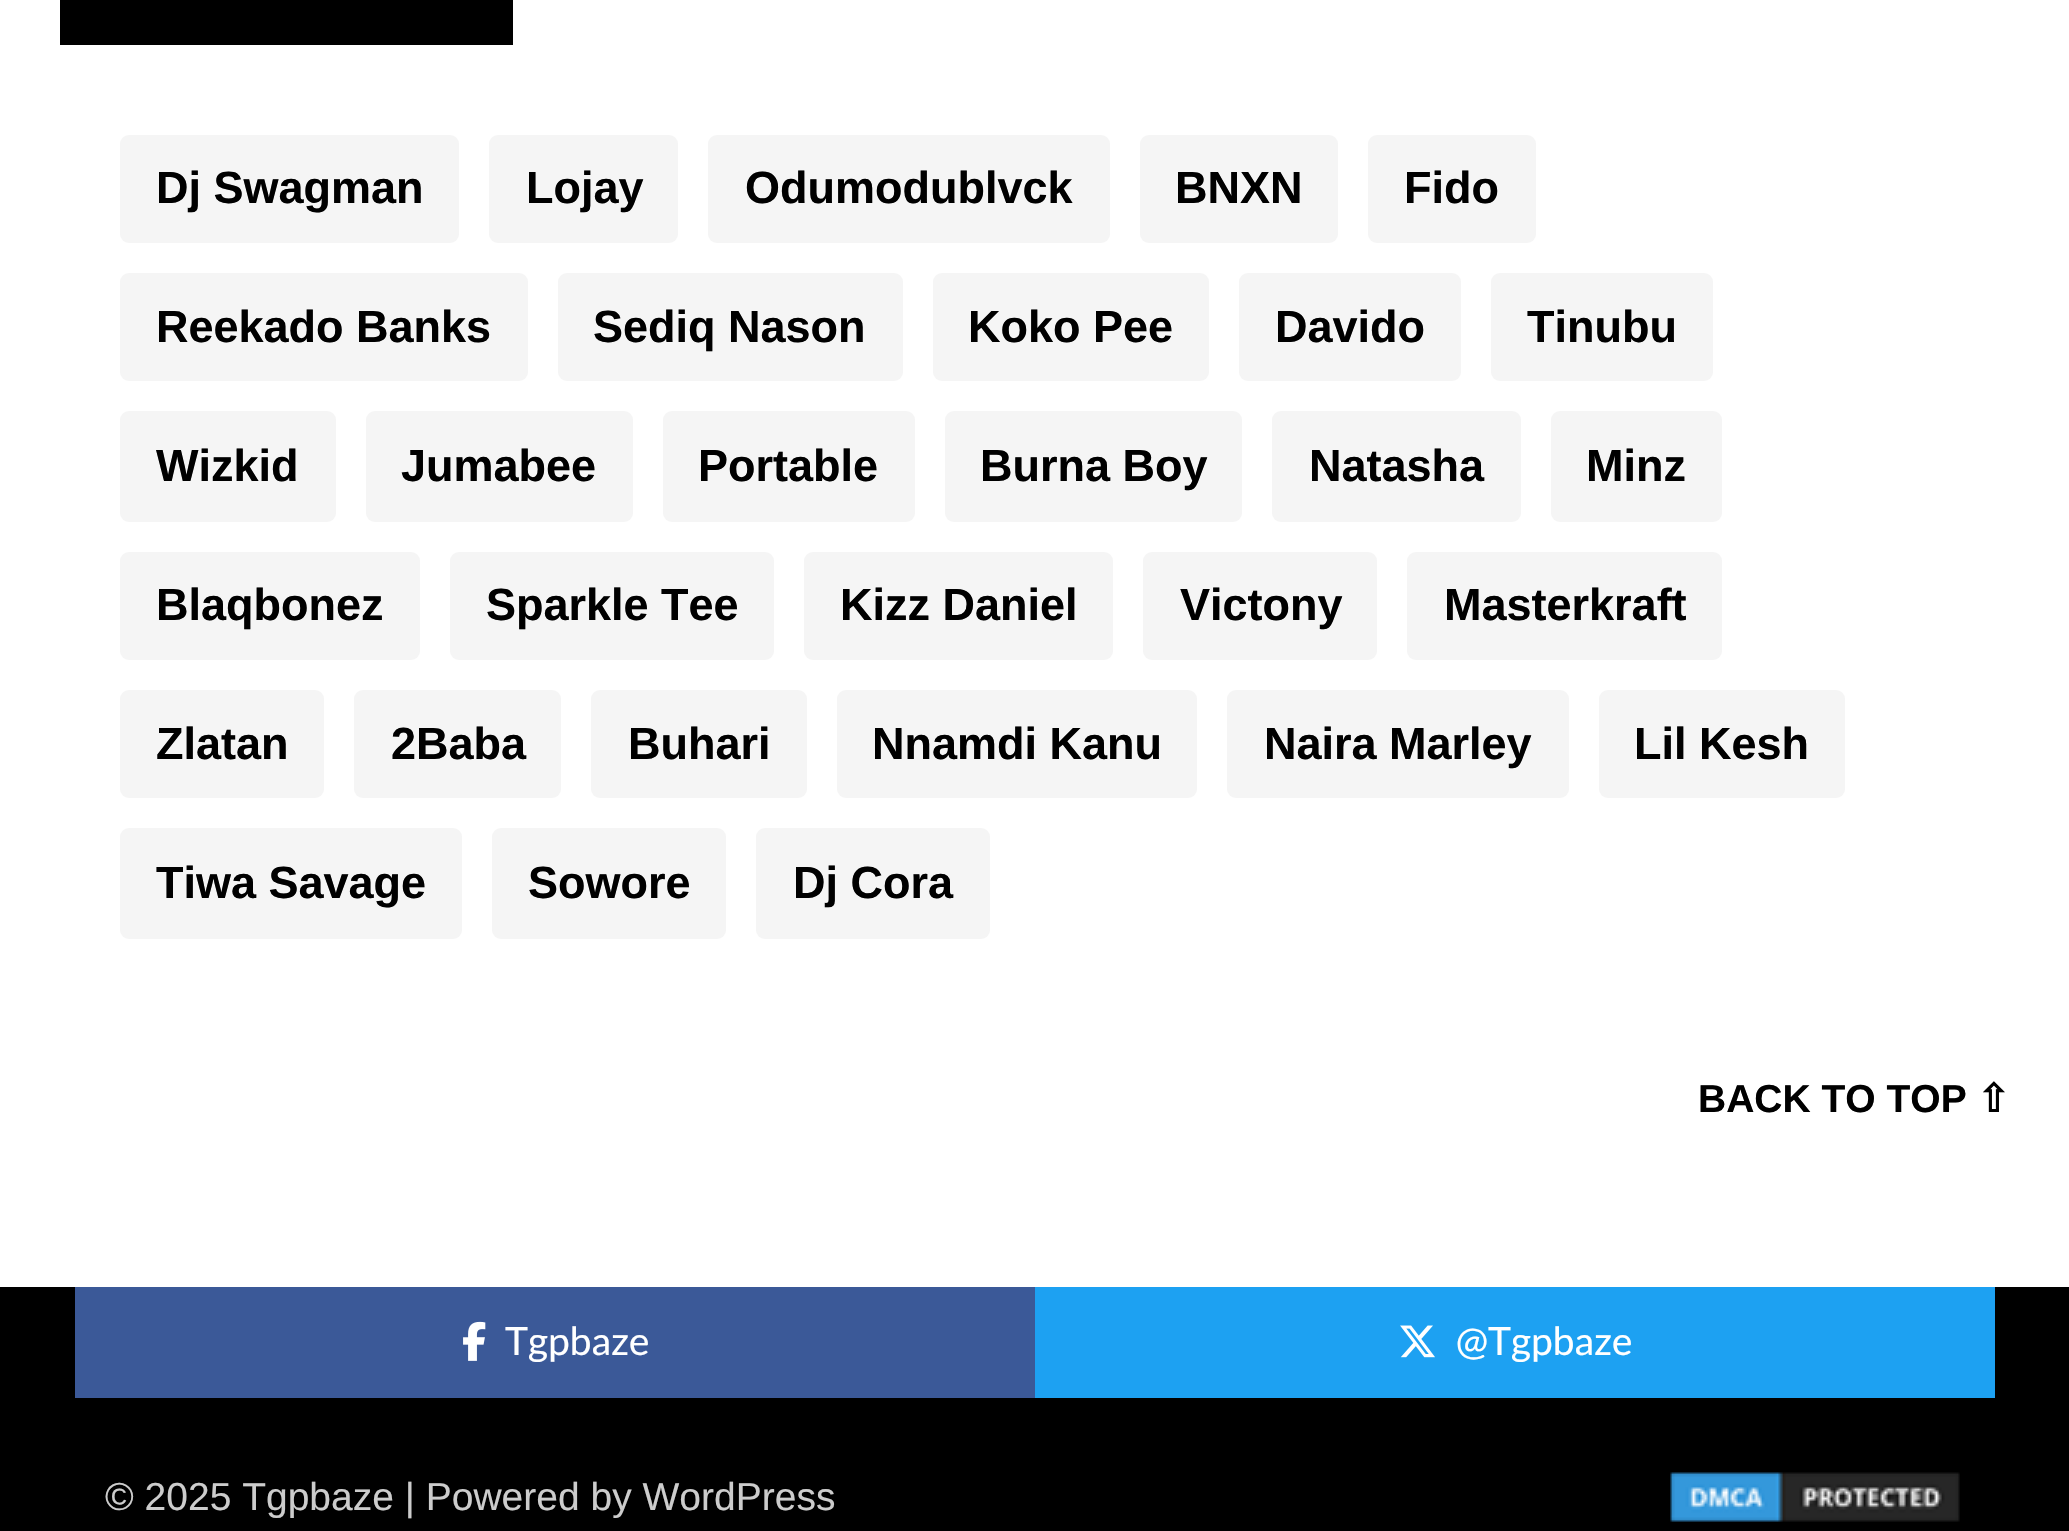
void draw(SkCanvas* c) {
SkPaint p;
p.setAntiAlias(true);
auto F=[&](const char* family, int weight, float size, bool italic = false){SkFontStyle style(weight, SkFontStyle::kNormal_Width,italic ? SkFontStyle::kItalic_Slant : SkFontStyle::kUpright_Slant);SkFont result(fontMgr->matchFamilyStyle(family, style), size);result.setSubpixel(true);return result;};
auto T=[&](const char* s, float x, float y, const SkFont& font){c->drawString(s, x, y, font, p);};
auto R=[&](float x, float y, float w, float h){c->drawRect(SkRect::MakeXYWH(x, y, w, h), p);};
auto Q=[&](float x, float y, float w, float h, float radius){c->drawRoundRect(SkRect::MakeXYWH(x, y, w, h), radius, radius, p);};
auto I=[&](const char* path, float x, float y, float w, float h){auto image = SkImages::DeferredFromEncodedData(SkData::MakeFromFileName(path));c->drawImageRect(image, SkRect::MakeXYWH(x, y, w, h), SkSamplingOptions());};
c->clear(0xffffffff);
p.setColor(0xff000000);
R(60,0,453,45);
p.setColor(0xfff5f5f5);
Q(120,135,339,108,9);
auto f1 = F("Liberation Sans",700,45);
p.setColor(0xff000000);
T("Dj Swagman",156,203,f1);
p.setColor(0xfff5f5f5);
Q(489,135,189,108,9);
p.setColor(0xff000000);
T("Lojay",526,203,f1);
p.setColor(0xfff5f5f5);
Q(708,135,402,108,9);
p.setColor(0xff000000);
T("Odumodublvck",745,203,f1);
p.setColor(0xfff5f5f5);
Q(1140,135,198,108,9);
p.setColor(0xff000000);
T("BNXN",1175,203,f1);
p.setColor(0xfff5f5f5);
Q(1368,135,168,108,9);
p.setColor(0xff000000);
T("Fido",1404,203,f1);
p.setColor(0xfff5f5f5);
Q(120,273,408,108,9);
p.setColor(0xff000000);
T("Reekado Banks",156,342,f1);
p.setColor(0xfff5f5f5);
Q(558,273,345,108,9);
p.setColor(0xff000000);
T("Sediq Nason",593,342,f1);
p.setColor(0xfff5f5f5);
Q(933,273,276,108,9);
p.setColor(0xff000000);
T("Koko Pee",968,342,f1);
p.setColor(0xfff5f5f5);
Q(1239,273,222,108,9);
p.setColor(0xff000000);
T("Davido",1275,342,f1);
p.setColor(0xfff5f5f5);
Q(1491,273,222,108,9);
p.setColor(0xff000000);
T("Tinubu",1527,342,f1);
p.setColor(0xfff5f5f5);
Q(120,411,216,111,9);
p.setColor(0xff000000);
T("Wizkid",156,481,f1);
p.setColor(0xfff5f5f5);
Q(366,411,267,111,9);
p.setColor(0xff000000);
T("Jumabee",401,481,f1);
p.setColor(0xfff5f5f5);
Q(663,411,252,111,9);
p.setColor(0xff000000);
T("Portable",698,481,f1);
p.setColor(0xfff5f5f5);
Q(945,411,297,111,9);
p.setColor(0xff000000);
T("Burna Boy",980,481,f1);
p.setColor(0xfff5f5f5);
Q(1272,411,249,111,9);
p.setColor(0xff000000);
T("Natasha",1309,481,f1);
p.setColor(0xfff5f5f5);
Q(1551,411,171,111,9);
p.setColor(0xff000000);
T("Minz",1586,481,f1);
p.setColor(0xfff5f5f5);
Q(120,552,300,108,9);
p.setColor(0xff000000);
T("Blaqbonez",156,620,f1);
p.setColor(0xfff5f5f5);
Q(450,552,324,108,9);
p.setColor(0xff000000);
T("Sparkle Tee",486,620,f1);
p.setColor(0xfff5f5f5);
Q(804,552,309,108,9);
p.setColor(0xff000000);
T("Kizz Daniel",840,620,f1);
p.setColor(0xfff5f5f5);
Q(1143,552,234,108,9);
p.setColor(0xff000000);
T("Victony",1180,620,f1);
p.setColor(0xfff5f5f5);
Q(1407,552,315,108,9);
p.setColor(0xff000000);
T("Masterkraft",1444,620,f1);
p.setColor(0xfff5f5f5);
Q(120,690,204,108,9);
p.setColor(0xff000000);
T("Zlatan",156,759,f1);
p.setColor(0xfff5f5f5);
Q(354,690,207,108,9);
p.setColor(0xff000000);
T("2Baba",391,759,f1);
p.setColor(0xfff5f5f5);
Q(591,690,216,108,9);
p.setColor(0xff000000);
T("Buhari",628,759,f1);
p.setColor(0xfff5f5f5);
Q(837,690,360,108,9);
p.setColor(0xff000000);
T("Nnamdi Kanu",872,759,f1);
p.setColor(0xfff5f5f5);
Q(1227,690,342,108,9);
p.setColor(0xff000000);
T("Naira Marley",1264,759,f1);
p.setColor(0xfff5f5f5);
Q(1599,690,246,108,9);
p.setColor(0xff000000);
T("Lil Kesh",1634,759,f1);
p.setColor(0xfff5f5f5);
Q(120,828,342,111,9);
p.setColor(0xff000000);
T("Tiwa Savage",156,898,f1);
p.setColor(0xfff5f5f5);
Q(492,828,234,111,9);
p.setColor(0xff000000);
T("Sowore",528,898,f1);
p.setColor(0xfff5f5f5);
Q(756,828,234,111,9);
p.setColor(0xff000000);
T("Dj Cora",793,898,f1);
auto f2 = F("Liberation Sans",700,39);
T("BACK TO TOP",1698,1112,f2);
auto f3 = F("DejaVu Sans",700,39);
T("⇧",1977,1112,f3);
R(0,1287,2069,244);
p.setColor(0xff3b5998);
R(75,1287,960,111);
I("1.png",463,1321,23,40);
auto f4 = F("Lato",400,39);
p.setColor(0xffffffff);
T("Tgpbaze",505,1355,f4);
p.setColor(0xff1da1f2);
R(1035,1287,960,111);
I("2.png",1400,1325,35,33);
p.setColor(0xffffffff);
T("@Tgpbaze",1456,1355,f4);
auto f5 = F("Liberation Sans",400,39);
p.setColor(0xffcccccc);
T("© 2025 Tgpbaze | Powered by WordPress",105,1510,f5);
I("3.png",1670,1472,290,50);
}
